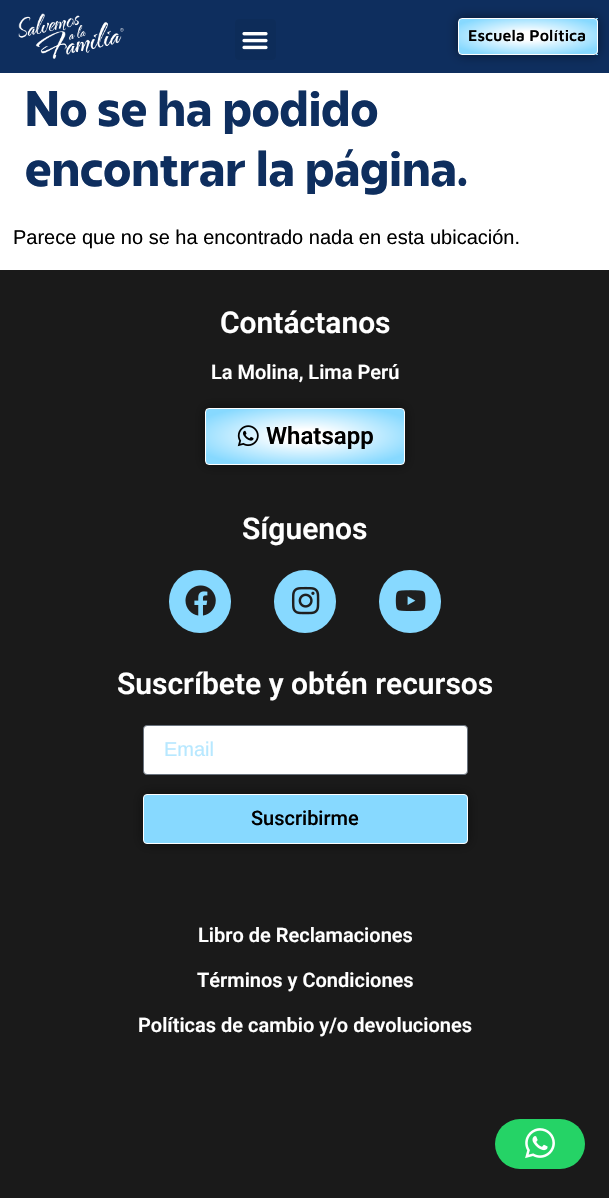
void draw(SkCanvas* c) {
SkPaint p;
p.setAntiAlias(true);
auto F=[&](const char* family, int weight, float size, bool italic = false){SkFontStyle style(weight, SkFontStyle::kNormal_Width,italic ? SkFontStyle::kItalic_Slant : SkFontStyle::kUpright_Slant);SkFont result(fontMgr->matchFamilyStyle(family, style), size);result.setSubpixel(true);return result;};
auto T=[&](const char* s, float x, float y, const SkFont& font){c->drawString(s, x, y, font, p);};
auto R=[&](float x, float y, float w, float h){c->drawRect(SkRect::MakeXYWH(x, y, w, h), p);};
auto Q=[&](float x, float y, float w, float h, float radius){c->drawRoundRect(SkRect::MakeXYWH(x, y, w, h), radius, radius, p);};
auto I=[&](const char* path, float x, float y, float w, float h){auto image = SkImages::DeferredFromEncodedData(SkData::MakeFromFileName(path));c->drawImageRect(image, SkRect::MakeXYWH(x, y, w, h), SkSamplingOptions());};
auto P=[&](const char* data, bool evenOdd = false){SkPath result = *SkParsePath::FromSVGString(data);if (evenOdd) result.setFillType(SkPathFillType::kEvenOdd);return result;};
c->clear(0xffffffff);
p.setColor(0xff0e2e5e);
R(0,0,609,73);
I("1.png",18,13,106,46);
p.setColor(0xff0d2c59);
Q(235,19,41,41,4);
I("2.png",242,32,26,18);
p.setColor(0x80000000);
p.setMaskFilter(SkMaskFilter::MakeBlur(kNormal_SkBlurStyle, 6));
c->drawRoundRect(SkRect::MakeXYWH(458,18,140,37),4,4,p);
p.setMaskFilter(nullptr);
{
const SkColor colors[] = {0xffffffff,0xff87d9ff};
const float stops[] = {.17,.85};
SkMatrix m = SkMatrix::Translate(665,1.2).preScale(97,25);
p.setShader(SkGradientShader::MakeRadial({0, 0}, 1, colors, stops, 2, SkTileMode::kClamp, 0, &m));
p.setAlpha(255);
}
R(596,18,2,1);
{
const SkColor colors[] = {0xffffffff,0xff87d9ff};
const float stops[] = {.17,.85};
SkMatrix m = SkMatrix::Translate(528,36).preScale(97,25);
p.setShader(SkGradientShader::MakeRadial({0, 0}, 1, colors, stops, 2, SkTileMode::kClamp, 0, &m));
p.setAlpha(255);
}
R(459,19,137,35);
c->save();
c->clipPath(P("M462 18h132c2 0 4 2 4 4v29c0 2-2 4-4 4h-132c-2 0-4-2-4-4v-29c0-2 2-4 4-4z"),true);
{
const SkColor colors[] = {0xffffffff,0xff87d9ff};
const float stops[] = {.17,.85};
SkMatrix m = SkMatrix::Translate(665,36).preScale(97,25);
p.setShader(SkGradientShader::MakeRadial({0, 0}, 1, colors, stops, 2, SkTileMode::kClamp, 0, &m));
p.setAlpha(255);
}
R(596,19,2,35);
c->restore();
{
const SkColor colors[] = {0xffffffff,0xff87d9ff};
const float stops[] = {.17,.85};
SkMatrix m = SkMatrix::Translate(665,71).preScale(97,25);
p.setShader(SkGradientShader::MakeRadial({0, 0}, 1, colors, stops, 2, SkTileMode::kClamp, 0, &m));
p.setAlpha(255);
}
R(596,54,2,1);
p.setStroke(true);
p.setStrokeWidth(1);
p.setShader(nullptr);
p.setColor(0xffffffff);
c->drawRoundRect(SkRect::MakeXYWH(458.5,18.5,139,36),3.5,3.5,p);
auto f1 = F("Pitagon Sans",600,16);
p.setStroke(false);
p.setColor(0xff000000);
T("Escuela Política",468,41,f1);
auto f2 = F("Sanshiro",700,50);
p.setColor(0xff0e2e5e);
T("No se ha podido",25,126,f2);
T("encontrar la página.",25,186,f2);
auto f3 = F("Liberation Sans",400,20);
p.setColor(0xff000000);
T("Parece que no se ha encontrado nada en esta ubicación.",13,244,f3);
p.setColor(0xff1a1a1a);
R(0,270,609,928);
auto f4 = F("Roboto",600,30);
p.setColor(0xffffffff);
T("Contáctanos",220,333,f4);
auto f5 = F("Roboto",600,20);
T("La Molina, Lima Perú",211,379,f5);
p.setColor(0x80000000);
p.setMaskFilter(SkMaskFilter::MakeBlur(kNormal_SkBlurStyle, 6));
c->drawRoundRect(SkRect::MakeXYWH(205,408,200,57),4,4,p);
p.setMaskFilter(nullptr);
c->save();
c->clipPath(P("M209 408h192c2 0 4 2 4 4v49c0 2-2 4-4 4h-192c-2 0-4-2-4-4v-49c0-2 2-4 4-4z"),true);
{
const SkColor colors[] = {0xffffffff,0xff87d9ff};
const float stops[] = {.17,.85};
SkMatrix m = SkMatrix::Translate(305,436).preScale(140,39);
p.setShader(SkGradientShader::MakeRadial({0, 0}, 1, colors, stops, 2, SkTileMode::kClamp, 0, &m));
p.setAlpha(255);
}
R(206,409,198,55);
c->restore();
p.setStroke(true);
p.setShader(nullptr);
p.setColor(0xffffffff);
c->drawRoundRect(SkRect::MakeXYWH(205.5,408.5,199,56),3.5,3.5,p);
I("3.png",237,425,22,22);
auto f6 = F("Roboto",600,24);
p.setStroke(false);
p.setColor(0xff000000);
T("Whatsapp",266,444,f6);
p.setColor(0xffffffff);
T("Síguenos",242,539,f4);
p.setColor(0xff87d9ff);
Q(169,570,62,63,31);
I("4.png",185,585,31,31);
Q(274,570,62,63,31);
I("5.png",291,586,29,29);
Q(379,570,62,63,31);
I("6.png",395,590,31,22);
p.setColor(0xffffffff);
T("Suscríbete y obtén recursos",117,694,f4);
c->drawRoundRect(SkRect::MakeXYWH(143.5,725.5,324,49),3.5,3.5,p);
p.setStroke(true);
p.setColor(0xff69727d);
c->drawRoundRect(SkRect::MakeXYWH(143.5,725.5,324,49),3.5,3.5,p);
p.setStroke(false);
p.setColor(0xffb7e8ff);
T("Email",164,756,f3);
p.setColor(0x80000000);
p.setMaskFilter(SkMaskFilter::MakeBlur(kNormal_SkBlurStyle, 6));
c->drawRoundRect(SkRect::MakeXYWH(143,794,325,50),4,4,p);
p.setMaskFilter(nullptr);
p.setColor(0xff87d9ff);
c->drawRoundRect(SkRect::MakeXYWH(143.5,794.5,324,49),3.5,3.5,p);
p.setStroke(true);
p.setColor(0xffffffff);
c->drawRoundRect(SkRect::MakeXYWH(143.5,794.5,324,49),3.5,3.5,p);
auto f7 = F("Roboto",500,20);
p.setStroke(false);
p.setColor(0xff000000);
T("Suscribirme",251,825,f7);
p.setColor(0xffffffff);
T("Libro de Reclamaciones",198,942,f5);
T("Términos y Condiciones",197,987,f5);
T("Políticas de cambio y/o devoluciones",138,1032,f5);
p.setColor(0xff25d366);
Q(495,1119,90,50,25);
I("7.png",525,1128,30,31);
}
